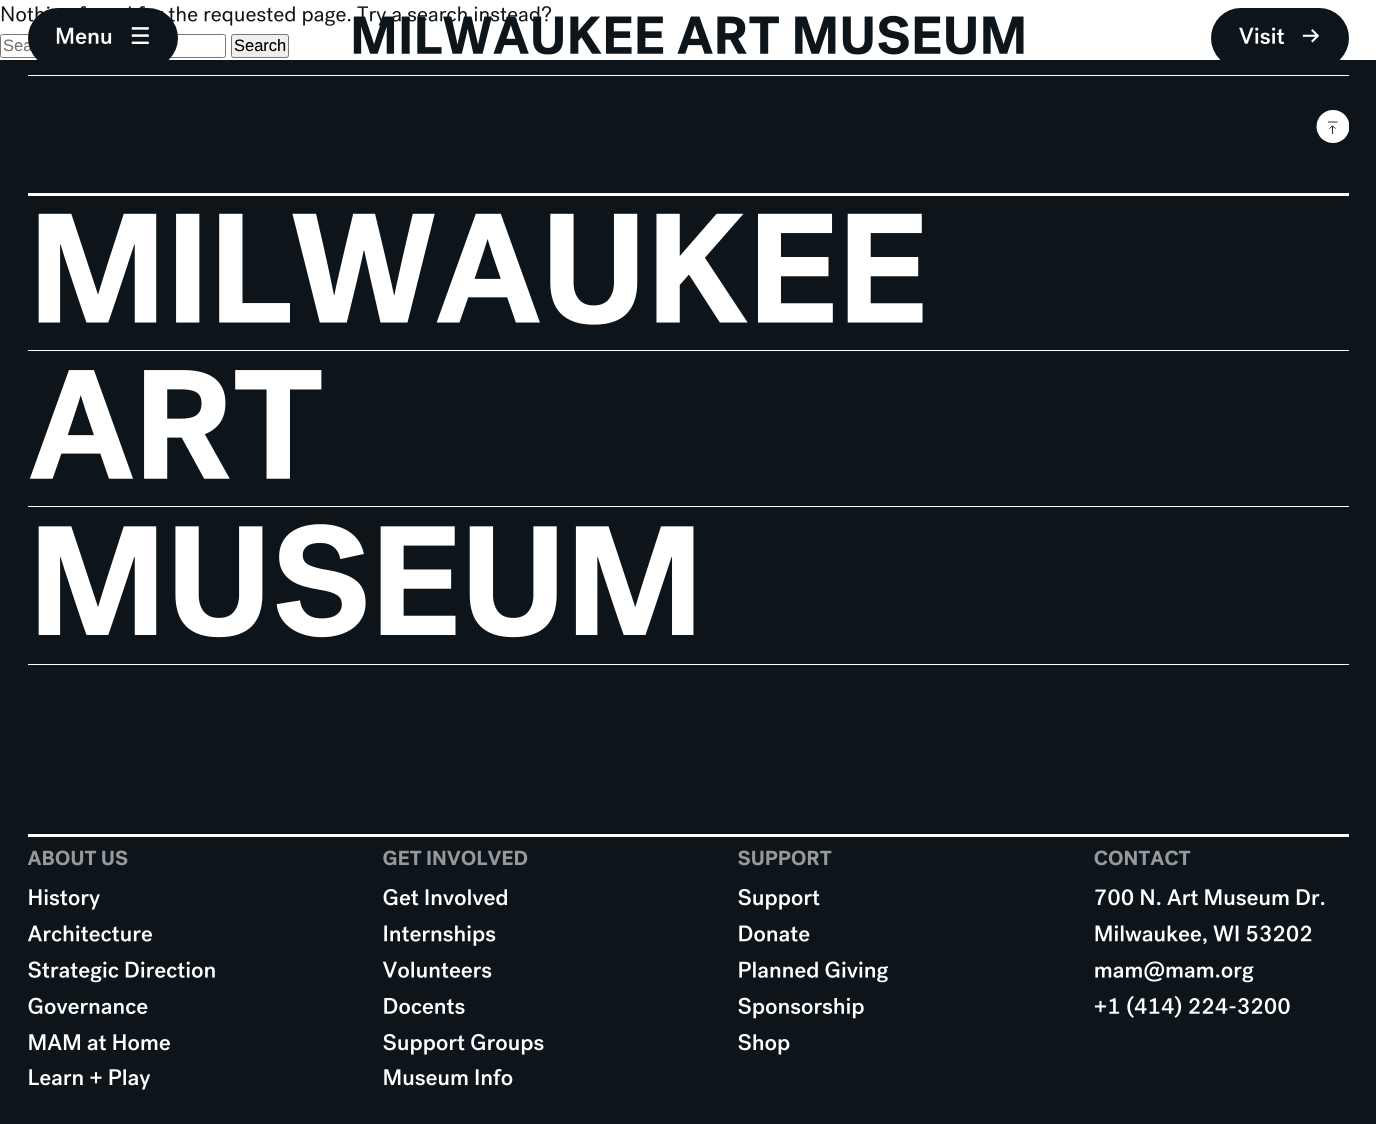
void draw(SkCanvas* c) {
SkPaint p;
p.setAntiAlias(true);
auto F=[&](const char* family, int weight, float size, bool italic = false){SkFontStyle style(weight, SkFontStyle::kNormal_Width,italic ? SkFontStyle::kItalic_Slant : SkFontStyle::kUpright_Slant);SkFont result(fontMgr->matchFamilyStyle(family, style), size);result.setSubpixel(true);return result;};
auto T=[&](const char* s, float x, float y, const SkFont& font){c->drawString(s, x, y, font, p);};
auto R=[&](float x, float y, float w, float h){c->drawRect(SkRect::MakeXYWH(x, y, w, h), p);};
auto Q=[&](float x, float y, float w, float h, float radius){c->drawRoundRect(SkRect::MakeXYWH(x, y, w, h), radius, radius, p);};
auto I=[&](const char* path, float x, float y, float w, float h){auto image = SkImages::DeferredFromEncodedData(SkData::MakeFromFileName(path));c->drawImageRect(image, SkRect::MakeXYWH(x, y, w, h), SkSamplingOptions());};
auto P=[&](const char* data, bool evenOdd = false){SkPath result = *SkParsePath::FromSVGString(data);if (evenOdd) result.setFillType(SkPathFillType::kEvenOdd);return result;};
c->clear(0xffffffff);
p.setColor(0xff0d151a);
R(0,60,1376,1064);
p.setColor(0xffffffff);
R(28,75,1321,1);
I("5.png",1,6,551,20);
p.setStroke(true);
p.setStrokeWidth(1);
p.setColor(0xff767676);
c->drawRoundRect(SkRect::MakeXYWH(.5,34.5,225,23),2,2,p);
auto f1 = F("Liberation Sans",400,16.5);
p.setStroke(false);
p.setColor(0xff757575);
T("Sea",3,51,f1);
p.setColor(0xff0d151a);
Q(28,8,150,60,30);
I("1.png",56,27,56,17);
auto f2 = F("DejaVu Sans",400,23);
p.setColor(0xffffffff);
T("☰",130,44,f2);
I("2.png",353,15,671,40);
p.setColor(0xff0d151a);
Q(1211,8,138,60,30);
I("3.png",1239,27,46,17);
I("4.png",1302,29,18,14);
p.setColor(0xffefefef);
c->drawRoundRect(SkRect::MakeXYWH(231.5,34.5,57,23),2,2,p);
p.setStroke(true);
p.setColor(0xff767676);
c->drawRoundRect(SkRect::MakeXYWH(231.5,34.5,57,23),2,2,p);
p.setStroke(false);
p.setColor(0xff000000);
T("Search",234,51,f1);
p.setColor(0xffffffff);
R(28,193,1321,3);
c->save();
c->clipRect(SkRect::MakeXYWH(1316,110,33,33));
c->drawCircle(1333,126.5,16.5,p);
c->restore();
p.setColor(0xff272d32);
R(1332,126,1,8);
p.setStroke(true);
p.setStrokeWidth(.9);
p.setColor(0xff0f161b);
c->drawPath(P("M1329.5 128.5l3-2.5l3 2.5m2-6.5h-9.5"),p);
p.setStroke(false);
p.setColor(0xffffffff);
R(28,350,1321,1);
I("6.png",38,213,885,112);
R(28,506,1321,1);
I("7.png",29,370,293,109);
R(28,664,1321,1);
I("8.png",38,524,656,114);
R(28,834,1321,3);
I("9.png",27,850,101,16);
I("10.png",29,889,71,21);
I("11.png",28,925,124,17);
I("12.png",28,961,187,22);
I("13.png",28,997,120,17);
I("14.png",29,1034,141,17);
I("15.png",29,1069,122,21);
I("16.png",383,850,145,16);
I("17.png",383,889,124,17);
I("18.png",384,925,112,21);
I("19.png",382,961,110,17);
I("20.png",384,998,81,16);
I("21.png",383,1033,161,22);
I("22.png",384,1069,129,17);
I("23.png",738,850,94,16);
I("24.png",738,888,82,22);
I("25.png",739,925,71,17);
I("26.png",739,961,150,22);
I("27.png",738,997,126,22);
I("28.png",738,1033,52,22);
I("29.png",1094,850,97,16);
I("30.png",1095,889,230,17);
I("31.png",1095,925,217,19);
I("32.png",1095,961,159,22);
I("33.png",1094,996,196,22);
}
